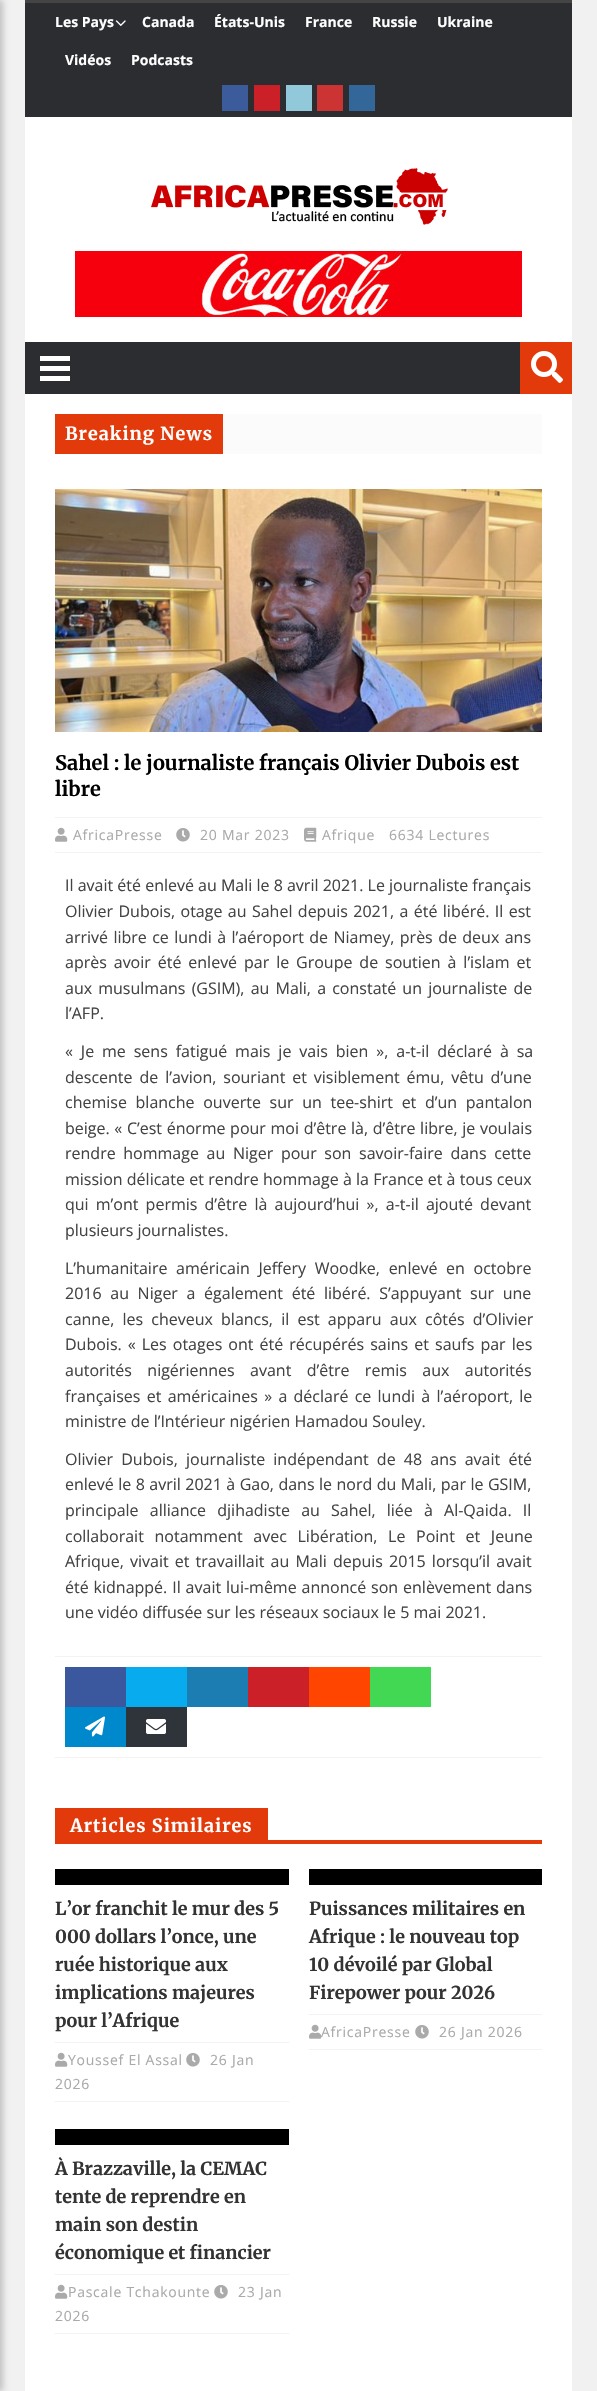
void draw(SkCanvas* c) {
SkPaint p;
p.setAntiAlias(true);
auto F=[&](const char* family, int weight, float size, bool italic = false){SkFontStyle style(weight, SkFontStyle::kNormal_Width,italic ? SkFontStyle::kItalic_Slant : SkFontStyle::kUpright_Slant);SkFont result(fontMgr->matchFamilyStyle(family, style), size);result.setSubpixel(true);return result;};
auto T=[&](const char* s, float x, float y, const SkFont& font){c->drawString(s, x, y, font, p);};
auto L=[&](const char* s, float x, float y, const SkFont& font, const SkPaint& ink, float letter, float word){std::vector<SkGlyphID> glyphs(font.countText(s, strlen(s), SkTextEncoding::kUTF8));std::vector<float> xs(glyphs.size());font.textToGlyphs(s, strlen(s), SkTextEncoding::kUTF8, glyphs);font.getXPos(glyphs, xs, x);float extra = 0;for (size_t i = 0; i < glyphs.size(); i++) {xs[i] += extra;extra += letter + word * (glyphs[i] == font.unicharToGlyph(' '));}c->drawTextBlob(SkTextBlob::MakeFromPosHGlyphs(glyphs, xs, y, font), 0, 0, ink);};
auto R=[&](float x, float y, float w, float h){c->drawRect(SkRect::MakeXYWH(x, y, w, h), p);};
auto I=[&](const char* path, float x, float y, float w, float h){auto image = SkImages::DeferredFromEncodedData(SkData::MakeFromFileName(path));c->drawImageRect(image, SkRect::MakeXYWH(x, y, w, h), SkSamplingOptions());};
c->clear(0xfff1f1f1);
p.setColor(0x33000000);
p.setMaskFilter(SkMaskFilter::MakeBlur(kNormal_SkBlurStyle, 3));
c->drawRect(SkRect::MakeXYWH(-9,0,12,2391),p);
p.setMaskFilter(nullptr);
p.setColor(0xffffffff);
R(25,117,547,2274);
p.setColor(0xff2b2d31);
R(25,3,547,114);
p.setColor(0xff444444);
R(25,0,547,3);
auto f1 = F("Open Sans",700,14);
p.setColor(0xffffffff);
T("Les Pays",55,27,f1);
I("1.png",115,20,11,7);
T("Canada",142,27,f1);
T("États-Unis",214,27,f1);
T("France",305,27,f1);
T("Russie",372,27,f1);
T("Ukraine",437,27,f1);
T("Vidéos",65,65,f1);
T("Podcasts",131,65,f1);
p.setColor(0xff3c5b9b);
R(222,85,26,26);
p.setColor(0xffcb2027);
R(254,85,26,26);
p.setColor(0xff91c9db);
R(286,85,26,26);
p.setColor(0xffcc3333);
R(317,85,26,26);
p.setColor(0xff336699);
R(349,85,26,26);
I("2.png",151,168,297,57);
I("3.png",75,251,447,66);
p.setColor(0xff2b2d31);
R(25,342,495,52);
p.setColor(0xffffffff);
R(40,356,30,5);
R(40,366,30,5);
R(40,376,30,5);
p.setColor(0xffe33a0c);
R(520,342,52,52);
I("4.png",531,351,32,32);
p.setColor(0xfffbfbfb);
R(223,414,319,40);
p.setColor(0xffe33a0c);
R(55,414,168,40);
auto f2 = F("Merriweather",700,18);
p.setColor(0xffffffff);
L("Breaking News",65,440,f2,p,1,0);
I("5.png",55,489,487,243);
auto f3 = F("Merriweather",700,20);
p.setColor(0xff000000);
T("Sahel : le journaliste français Olivier Dubois est",55,770,f3);
T("libre",55,796,f3);
p.setColor(0xfff3f3f3);
R(55,817,487,1);
R(55,852,487,1);
I("6.png",55,827,13,15);
auto f4 = F("Open Sans",400,14);
p.setColor(0xffaaaaaa);
L("AfricaPresse",73,840,f4,p,.75,0);
I("7.png",176,828,14,14);
L("20 Mar 2023",200,840,f4,p,.75,0);
I("8.png",304,827,13,15);
L("Afrique",322,840,f4,p,.75,0);
L("6634 Lectures",389,840,f4,p,.75,0);
auto f5 = F("Open Sans",400,16);
p.setColor(0xff444444);
T("Il avait été enlevé au Mali le 8 avril 2021. Le journaliste français",65,891,f5);
L("Olivier Dubois, otage au Sahel depuis 2021, a été libéré. Il est",65,917,f5,p,0,1.25);
L("arrivé libre ce lundi à l’aéroport de Niamey, près de deux ans",65,943,f5,p,0,1.25);
L("après avoir été enlevé par le Groupe de soutien à l’islam et",65,968,f5,p,0,2.75);
L("aux musulmans (GSIM), au Mali, a constaté un journaliste de",65,994,f5,p,0,2);
T("l’AFP.",65,1019,f5);
L("« Je me sens fatigué mais je vais bien », a-t-il déclaré à sa",65,1057,f5,p,0,3.75);
L("descente de l’avion, souriant et visiblement ému, vêtu d’une",65,1083,f5,p,0,2.75);
L("chemise blanche ouverte sur un tee-shirt et d’un pantalon",65,1108,f5,p,0,4.5);
L("beige. « C’est énorme pour moi d’être là, d’être libre, je voulais",65,1134,f5,p,0,.5);
L("rendre hommage au Niger pour son savoir-faire dans cette",65,1159,f5,p,0,3.5);
L("mission délicate et rendre hommage à la France et à tous ceux",65,1185,f5,p,0,.1);
L("qui m’ont permis d’être là aujourd’hui », a-t-il ajouté devant",65,1210,f5,p,0,3);
T("plusieurs journalistes.",65,1236,f5);
L("L’humanitaire américain Jeffery Woodke, enlevé en octobre",65,1274,f5,p,0,4.5);
L("2016 au Niger a également été libéré. S’appuyant sur une",65,1299,f5,p,0,4.5);
L("canne, les cheveux blancs, il est apparu aux côtés d’Olivier",65,1325,f5,p,0,4);
L("Dubois. « Les otages ont été récupérés sains et saufs par les",65,1350,f5,p,0,1.9);
L("autorités nigériennes avant d’être remis aux autorités",65,1376,f5,p,0,11.25);
L("françaises et américaines » a déclaré ce lundi à l’aéroport, le",65,1402,f5,p,0,2.1);
T("ministre de l’Intérieur nigérien Hamadou Souley.",65,1427,f5);
L("Olivier Dubois, journaliste indépendant de 48 ans avait été",65,1465,f5,p,0,4);
L("enlevé le 8 avril 2021 à Gao, dans le nord du Mali, par le GSIM,",65,1490,f5,p,0,.3);
L("principale alliance djihadiste au Sahel, liée à Al-Qaida. Il",65,1516,f5,p,0,7);
L("collaborait notamment avec Libération, Le Point et Jeune",65,1542,f5,p,0,6.5);
L("Afrique, vivait et travaillait au Mali depuis 2015 lorsqu’il avait",65,1567,f5,p,0,2);
L("été kidnappé. Il avait lui-même annoncé son enlèvement dans",65,1593,f5,p,0,.75);
T("une vidéo diffusée sur les réseaux sociaux le 5 mai 2021.",65,1618,f5);
p.setColor(0xfff3f3f3);
R(55,1656,487,1);
R(55,1757,487,1);
p.setColor(0xff3b579d);
R(65,1667,61,40);
p.setColor(0xff08acee);
R(126,1667,61,40);
p.setColor(0xff1c7db2);
R(187,1667,61,40);
p.setColor(0xffcb2027);
R(248,1667,61,40);
p.setColor(0xffff4500);
R(309,1667,61,40);
p.setColor(0xff43d854);
R(370,1667,61,40);
p.setColor(0xff0088cc);
R(65,1707,61,40);
I("9.png",85,1716,20,21);
p.setColor(0xff2f343b);
R(126,1707,61,40);
I("10.png",146,1719,20,15);
p.setColor(0xffe33a0c);
R(55,1840,487,4);
R(55,1808,213,32);
p.setColor(0xffffffff);
L("Articles Similaires",70,1832,f2,p,1,0);
p.setColor(0xff000000);
R(55,1869,234,16);
p.setColor(0xff333333);
T("L’or franchit le mur des 5",55,1915,f2);
T("000 dollars l’once, une",55,1943,f2);
T("ruée historique aux",55,1971,f2);
T("implications majeures",55,1999,f2);
T("pour l’Afrique",55,2027,f2);
p.setColor(0xfff3f3f3);
R(55,2042,234,1);
R(55,2101,234,1);
I("7.png",186,2053,14,14);
p.setColor(0xffaaaaaa);
L("26 Jan",210,2065,f4,p,.75,0);
L("2026",55,2089,f4,p,.75,0);
I("6.png",55,2052,13,15);
L("Youssef El Assal",68,2065,f4,p,.75,0);
p.setColor(0xff000000);
R(309,1869,233,16);
p.setColor(0xff333333);
T("Puissances militaires en",309,1915,f2);
T("Afrique : le nouveau top",309,1943,f2);
T("10 dévoilé par Global",309,1971,f2);
T("Firepower pour 2026",309,1999,f2);
p.setColor(0xfff3f3f3);
R(309,2014,233,1);
R(309,2049,233,1);
I("6.png",309,2024,13,15);
p.setColor(0xffaaaaaa);
L("AfricaPresse",321,2037,f4,p,.75,0);
I("7.png",415,2025,14,14);
L("26 Jan 2026",439,2037,f4,p,.75,0);
p.setColor(0xff000000);
R(55,2129,234,16);
p.setColor(0xff333333);
T("À Brazzaville, la CEMAC",55,2175,f2);
T("tente de reprendre en",55,2203,f2);
T("main son destin",55,2231,f2);
T("économique et financier",55,2259,f2);
p.setColor(0xfff3f3f3);
R(55,2274,234,1);
R(55,2333,234,1);
I("7.png",214,2285,14,14);
p.setColor(0xffaaaaaa);
L("23 Jan",238,2297,f4,p,.75,0);
L("2026",55,2321,f4,p,.75,0);
I("6.png",55,2284,13,15);
L("Pascale Tchakounte",68,2297,f4,p,.75,0);
}
